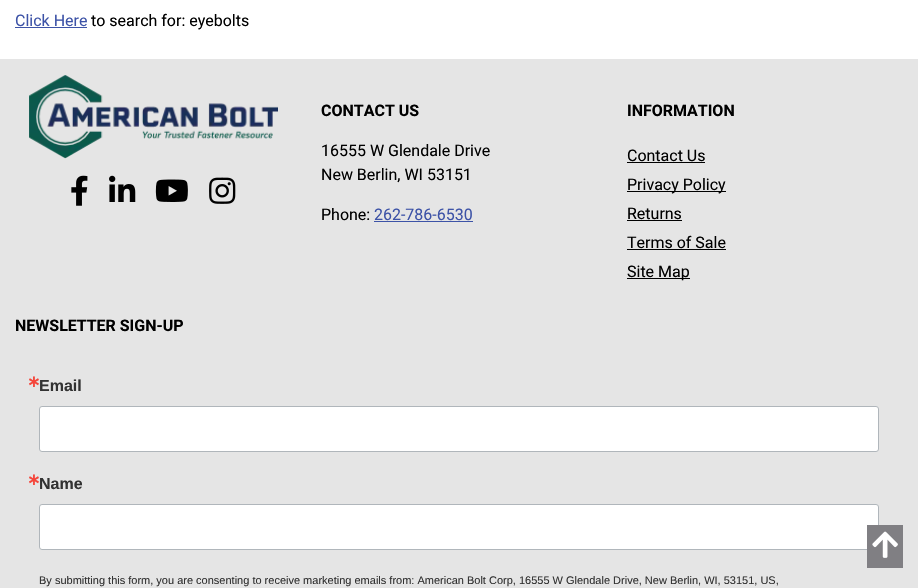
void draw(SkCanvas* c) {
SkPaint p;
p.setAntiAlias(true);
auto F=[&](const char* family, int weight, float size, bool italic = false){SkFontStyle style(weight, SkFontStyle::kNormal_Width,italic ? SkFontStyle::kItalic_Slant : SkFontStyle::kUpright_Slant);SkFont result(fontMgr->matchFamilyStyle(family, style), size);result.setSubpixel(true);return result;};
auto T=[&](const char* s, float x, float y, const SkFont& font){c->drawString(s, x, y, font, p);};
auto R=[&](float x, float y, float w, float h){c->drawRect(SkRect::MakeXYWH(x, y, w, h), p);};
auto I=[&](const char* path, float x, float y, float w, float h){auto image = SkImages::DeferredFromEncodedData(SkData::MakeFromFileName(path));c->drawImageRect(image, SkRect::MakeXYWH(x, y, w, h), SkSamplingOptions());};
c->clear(0xffffffff);
auto f1 = F("Roboto",400,16);
p.setColor(0xff3d53a7);
T("Click Here",15,26,f1);
R(15,27,72,1);
p.setColor(0xff000000);
T("to search for: eyebolts",91,26,f1);
p.setColor(0xffe5e5e5);
R(0,59,918,529);
I("1.png",29,75,249,84);
I("2.png",71,175,17,31);
I("3.png",109,175,27,27);
I("4.png",155,179,33,23);
I("5.png",209,177,27,27);
auto f2 = F("Roboto",700,16);
p.setColor(0xff000000);
T("CONTACT US",321,116,f2);
T("16555 W Glendale Drive",321,156,f1);
T("New Berlin, WI 53151",321,180,f1);
T("Phone:",321,220,f1);
p.setColor(0xff3d53a7);
T("262-786-6530",374,220,f1);
R(374,221,99,1);
p.setColor(0xff000000);
T("INFORMATION",627,116,f2);
T("Contact Us",627,161,f1);
R(627,162,78,1);
R(627,191,99,1);
T("Privacy Policy",627,190,f1);
T("Returns",627,219,f1);
R(627,220,55,1);
T("Terms of Sale",627,248,f1);
R(627,249,99,1);
R(627,278,63,1);
T("Site Map",627,277,f1);
T("NEWSLETTER SIGN-UP",15,331,f2);
auto f3 = F("DejaVu Sans",700,16);
p.setColor(0xfff5463b);
T("∗",27,387,f3);
auto f4 = F("Liberation Sans",700,16);
p.setColor(0xff323232);
T("Email",39,391,f4);
p.setColor(0xffffffff);
c->drawRoundRect(SkRect::MakeXYWH(39.5,406.5,839,45),2.5,2.5,p);
p.setStroke(true);
p.setStrokeWidth(1);
p.setColor(0xffb0b6bb);
c->drawRoundRect(SkRect::MakeXYWH(39.5,406.5,839,45),2.5,2.5,p);
p.setStroke(false);
p.setColor(0xfff5463b);
T("∗",27,485,f3);
p.setColor(0xff323232);
T("Name",39,489,f4);
p.setColor(0xffffffff);
c->drawRoundRect(SkRect::MakeXYWH(39.5,504.5,839,45),2.5,2.5,p);
p.setStroke(true);
p.setColor(0xffb0b6bb);
c->drawRoundRect(SkRect::MakeXYWH(39.5,504.5,839,45),2.5,2.5,p);
auto f5 = F("Liberation Sans",400,11);
p.setStroke(false);
p.setColor(0xff323232);
T("By submitting this form, you are consenting to receive marketing emails from: American Bolt Corp, 16555 W Glendale Drive, New Berlin, WI, 53151, US,",39,584,f5);
p.setColor(0xff807f83);
R(867,525,36,43);
I("6.png",872,531,26,27);
}
